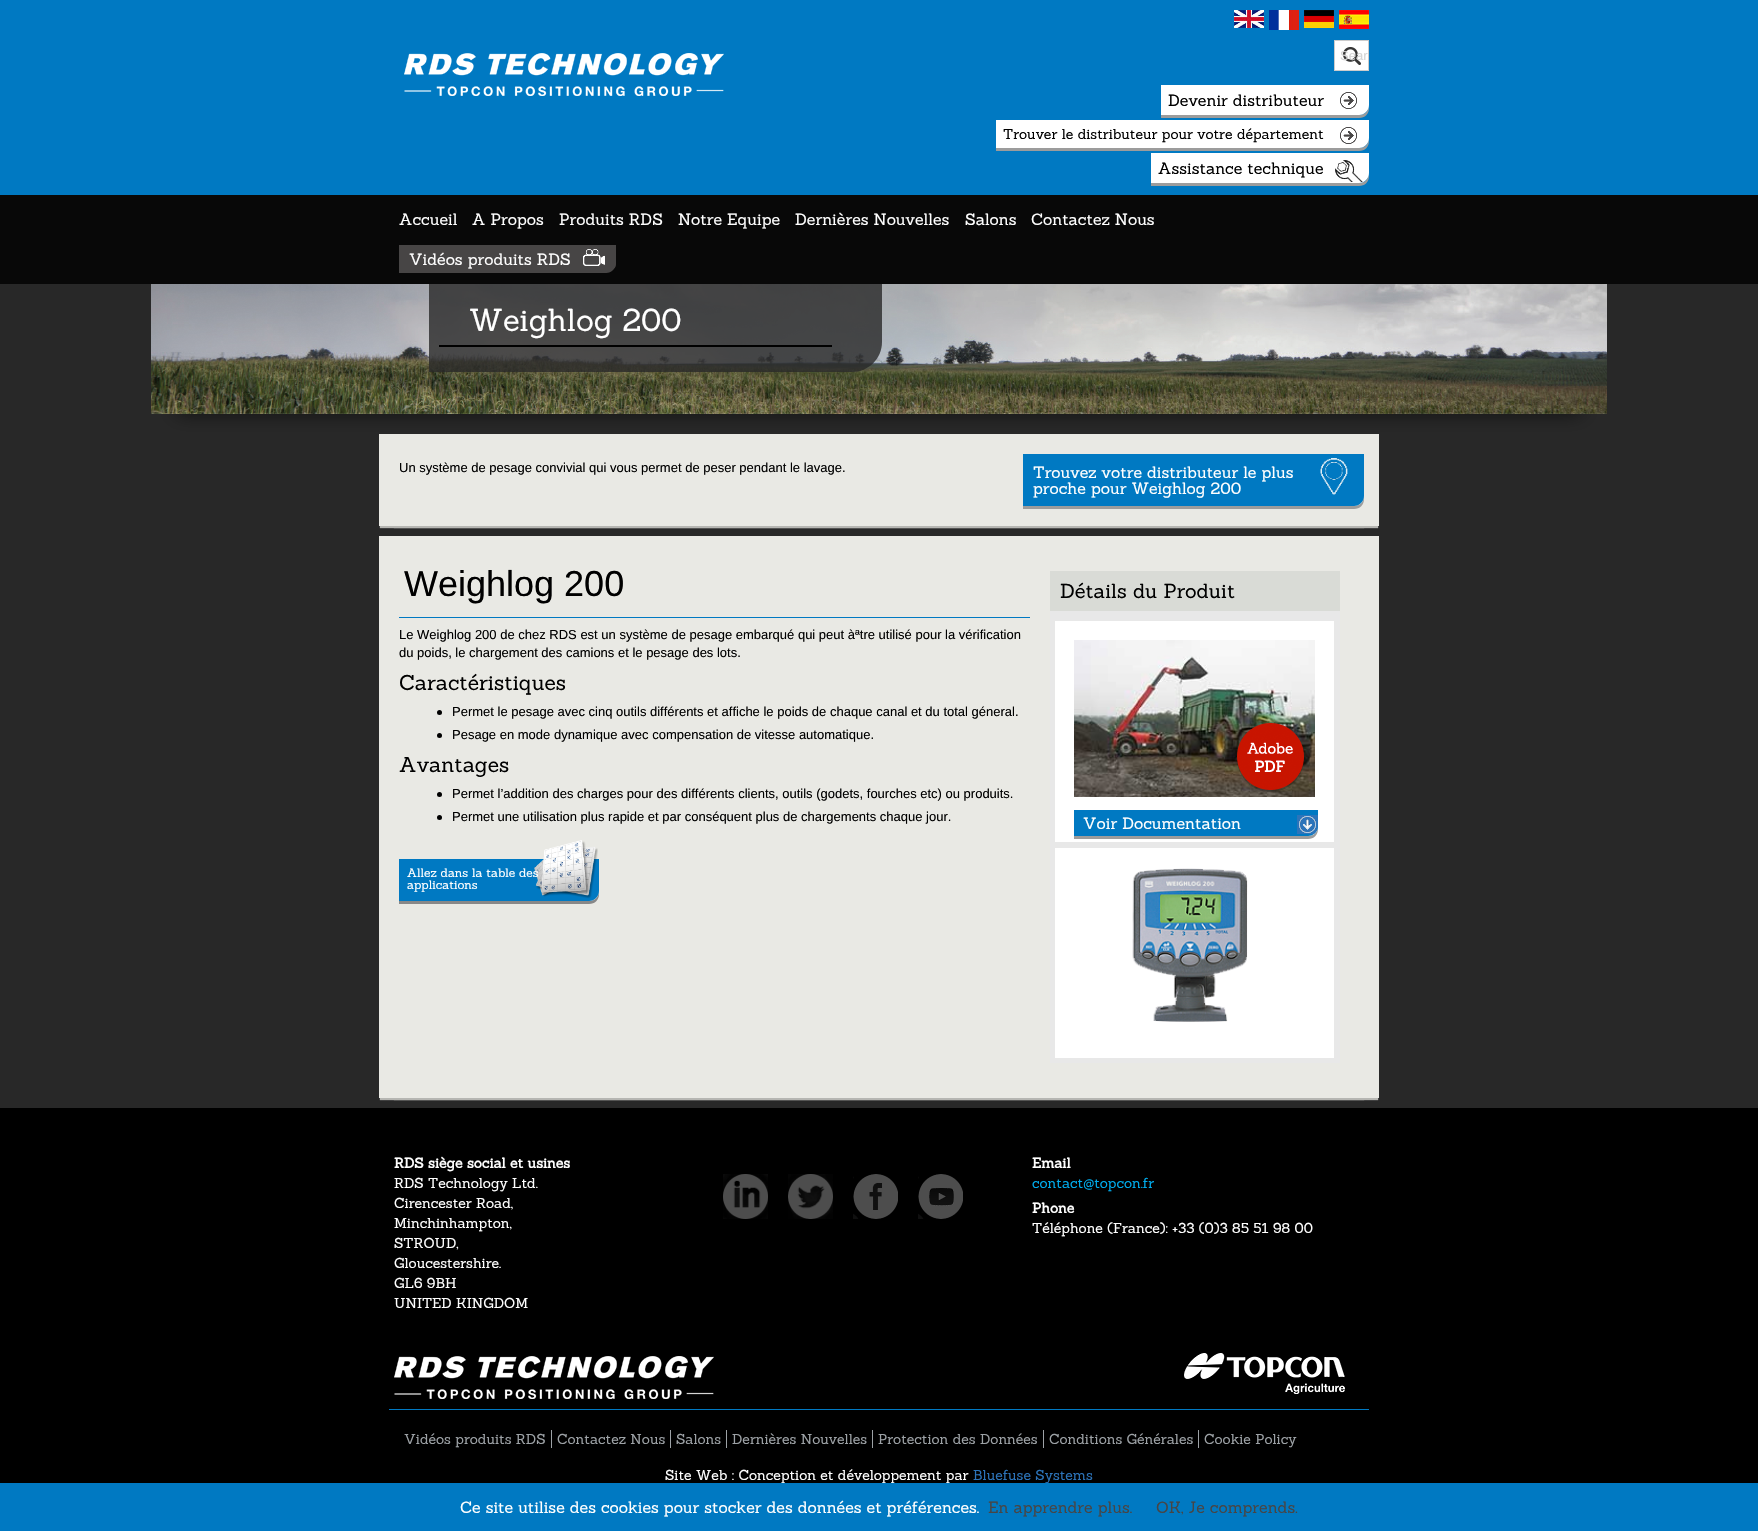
void draw(SkCanvas* c) {
SkPaint p;
p.setAntiAlias(true);
auto F=[&](const char* family, int weight, float size, bool italic = false){SkFontStyle style(weight, SkFontStyle::kNormal_Width,italic ? SkFontStyle::kItalic_Slant : SkFontStyle::kUpright_Slant);SkFont result(fontMgr->matchFamilyStyle(family, style), size);result.setSubpixel(true);return result;};
auto T=[&](const char* s, float x, float y, const SkFont& font){c->drawString(s, x, y, font, p);};
auto R=[&](float x, float y, float w, float h){c->drawRect(SkRect::MakeXYWH(x, y, w, h), p);};
auto I=[&](const char* path, float x, float y, float w, float h){auto image = SkImages::DeferredFromEncodedData(SkData::MakeFromFileName(path));c->drawImageRect(image, SkRect::MakeXYWH(x, y, w, h), SkSamplingOptions());};
auto P=[&](const char* data, bool evenOdd = false){SkPath result = *SkParsePath::FromSVGString(data);if (evenOdd) result.setFillType(SkPathFillType::kEvenOdd);return result;};
c->clear(0xff282828);
p.setColor(0xff0079c2);
R(0,0,1758,195);
I("1.png",1234,10,30,18);
I("2.png",1269,10,30,20);
I("3.png",1304,10,30,18);
I("4.png",1339,10,30,19);
I("5.png",404,53,320,43);
p.setColor(0xffffffff);
R(1335,41,33,29);
I("6.png",1343,47,18,18);
p.setStroke(true);
p.setStrokeWidth(1);
p.setColor(0xffcccccc);
c->drawRect(SkRect::MakeXYWH(1334.5,40.5,34,30),p);
auto f1 = F("Liberation Sans",400,13);
p.setStroke(false);
p.setColor(0xffd5d5d5);
T("Sear",1340,60,f1);
p.setColor(0xff9c9c9c);
c->drawPath(P("M1161 115v3h198c6 0 10-4 10-10v-3c0 6-4 10-10 10z"),p);
p.setColor(0xffffffff);
c->drawPath(P("M1161 85h208v20c0 5.5-4.5 10-10 10h-198z"),p);
I("7.png",1340,92,17,17);
auto f2 = F("Sanchez",400,16);
p.setColor(0xff000000);
T("Devenir distributeur",1168,106,f2);
p.setColor(0xff9c9c9c);
c->drawPath(P("M996 148v3h363c6 0 10-4 10-10v-3c0 6-4 10-10 10z"),p);
p.setColor(0xffffffff);
c->drawPath(P("M996 120h373v18c0 5.5-4.5 10-10 10h-363z"),p);
I("7.png",1340,127,17,17);
auto f3 = F("Sanchez",400,14);
p.setColor(0xff000000);
T("Trouver le distributeur pour votre département",1003,139,f3);
p.setColor(0xff9c9c9c);
c->drawPath(P("M1151 183v3h208c6 0 10-4 10-10v-3c0 6-4 10-10 10z"),p);
p.setColor(0xffffffff);
c->drawPath(P("M1151 153h218v20c0 5.5-4.5 10-10 10h-208z"),p);
I("8.png",1335,160,28,22);
p.setColor(0xff000000);
T("Assistance technique",1158,174,f2);
p.setColor(0xff080808);
R(0,195,1758,89);
p.setColor(0xffffffff);
T("Accueil",399,225,f2);
T("A Propos",472,225,f2);
T("Produits RDS",559,225,f2);
T("Notre Equipe",678,225,f2);
T("Dernières Nouvelles",795,225,f2);
T("Salons",965,225,f2);
T("Contactez Nous",1031,225,f2);
p.setColor(0xff474545);
c->drawPath(P("M399 245h217v18c0 5.5-4.5 10-10 10h-207z"),p);
I("9.png",583,249,33,19);
p.setColor(0xffffffff);
T("Vidéos produits RDS",409,265,f2);
p.setColor(0xcc000000);
p.setMaskFilter(SkMaskFilter::MakeBlur(kNormal_SkBlurStyle, 10));
c->drawRoundRect(SkRect::MakeXYWH(176,399,1406,13),6.5,6.5,p);
p.setMaskFilter(nullptr);
p.setColor(0xff282828);
R(168,385,1422,29);
I("10.png",151,284,1456,130);
p.setColor(0xcc282828);
c->drawPath(P("M429 284h453v58c0 16.5-13.5 30-30 30h-423z"),p);
p.setColor(0xff000000);
R(439,345,393,2);
auto f4 = F("Sanchez",400,31);
p.setColor(0xffffffff);
T("Weighlog 200",469,331,f4);
p.setColor(0xffb6b6b2);
p.setMaskFilter(SkMaskFilter::MakeBlur(kNormal_SkBlurStyle, .5));
c->drawRect(SkRect::MakeXYWH(380,452,984,76),p);
p.setMaskFilter(nullptr);
p.setMaskFilter(SkMaskFilter::MakeBlur(kNormal_SkBlurStyle, .5));
c->drawRect(SkRect::MakeXYWH(394,452,984,76),p);
p.setMaskFilter(nullptr);
p.setColor(0xffe9e9e4);
R(379,434,1000,92);
p.setColor(0xff000000);
T("Un système de pesage convivial qui vous permet de peser pendant le lavage.",399,472,f1);
p.setColor(0xff9c9c9c);
c->drawPath(P("M1023 506v3h331c6 0 10-4 10-10v-3c0 6-4 10-10 10z"),p);
p.setColor(0xff0079c2);
c->drawPath(P("M1023 454h341v42c0 5.5-4.5 10-10 10h-331z"),p);
I("11.png",1320,458,28,37);
p.setColor(0xffffffff);
T("Trouvez votre distributeur le plus",1033,478,f2);
T("proche pour Weighlog 200",1033,494,f2);
p.setColor(0xffb6b6b2);
p.setMaskFilter(SkMaskFilter::MakeBlur(kNormal_SkBlurStyle, .5));
c->drawRect(SkRect::MakeXYWH(380,554,984,546),p);
p.setMaskFilter(nullptr);
p.setMaskFilter(SkMaskFilter::MakeBlur(kNormal_SkBlurStyle, .5));
c->drawRect(SkRect::MakeXYWH(394,554,984,546),p);
p.setMaskFilter(nullptr);
p.setColor(0xffe9e9e4);
R(379,536,1000,562);
auto f5 = F("Liberation Sans",400,36);
p.setColor(0xff000000);
T("Weighlog 200",404,596,f5);
p.setColor(0xff0079c2);
R(399,617,631,1);
p.setColor(0xff000000);
T("Le Weighlog 200 de chez RDS est un système de pesage embarqué qui peut àªtre utilisé pour la vérification",399,639,f1);
T("du poids, le chargement des camions et le pesage des lots.",399,657,f1);
auto f6 = F("Sanchez",400,21);
T("Caractéristiques",399,690,f6);
c->drawCircle(439.5,712.5,2.5,p);
T("Permet le pesage avec cinq outils différents et affiche le poids de chaque canal et du total géneral.",452,716,f1);
c->drawCircle(439.5,735.5,2.5,p);
T("Pesage en mode dynamique avec compensation de vitesse automatique.",452,739,f1);
T("Avantages",399,772,f6);
c->drawCircle(439.5,794.5,2.5,p);
T("Permet l’addition des charges pour des différents clients, outils (godets, fourches etc) ou produits.",452,798,f1);
c->drawCircle(439.5,817.5,2.5,p);
T("Permet une utilisation plus rapide et par conséquent plus de chargements chaque jour.",452,821,f1);
p.setColor(0xff888888);
c->drawPath(P("M399 901v3h190c6 0 10-4 10-10v-3c0 6-4 10-10 10z"),p);
p.setColor(0xff0079c2);
c->drawPath(P("M399 859h200v32c0 5.5-4.5 10-10 10h-190z"),p);
I("12.png",534,840,64,59);
auto f7 = F("Sanchez",400,12);
p.setColor(0xffffffff);
T("Allez dans la table des",407,877,f7);
T("applications",407,889,f7);
p.setColor(0xffe8e8e8);
R(1050,611,290,452);
p.setColor(0xffd9dbd6);
R(1050,571,290,40);
auto f8 = F("Sanchez",400,20);
p.setColor(0xff000000);
T("Détails du Produit",1060,598,f8);
p.setColor(0xffffffff);
R(1055,621,279,221);
I("13.png",1074,640,241,157);
I("14.png",1237,723,67,69);
p.setColor(0xff9c9c9c);
c->drawPath(P("M1074 836v3h234c6 0 10-4 10-10v-3c0 6-4 10-10 10z"),p);
p.setColor(0xff0079c2);
c->drawPath(P("M1074 810h244v16c0 5.5-4.5 10-10 10h-234z"),p);
I("15.png",1297,815,21,19);
p.setColor(0xffffffff);
T("Voir Documentation",1083,829,f2);
R(1055,848,279,210);
I("16.png",1132,868,116,154);
p.setColor(0xff000000);
R(0,1108,1758,375);
auto f9 = F("Sanchez",700,14);
p.setColor(0xffffffff);
T("RDS siège social et usines",394,1168,f9);
T("RDS Technology Ltd.",394,1188,f3);
T("Cirencester Road,",394,1208,f3);
T("Minchinhampton,",394,1228,f3);
T("STROUD,",394,1248,f3);
T("Gloucestershire.",394,1268,f3);
T("GL6 9BH",394,1288,f3);
T("UNITED KINGDOM",394,1308,f3);
p.setColor(0xff4d4d4d);
R(723,1174,45,45);
I("17.png",723,1174,45,45);
R(788,1174,45,45);
I("18.png",788,1174,45,45);
R(853,1174,45,45);
I("19.png",853,1174,45,45);
R(918,1174,45,45);
I("20.png",918,1174,45,45);
p.setColor(0xffffffff);
T("Email",1032,1168,f9);
p.setColor(0xff00aced);
T("contact@topcon.fr",1032,1188,f3);
p.setColor(0xffffffff);
T("Phone",1032,1213,f9);
T("Téléphone (France): +33 (0)3 85 51 98 00",1032,1233,f3);
I("21.png",394,1356,320,43);
I("22.png",1184,1353,161,41);
p.setColor(0xff0079c2);
R(389,1409,980,1);
p.setColor(0xff9da2a6);
T("Vidéos produits RDS",404,1444,f3);
R(551,1430,1,18);
T("Contactez Nous",557,1444,f3);
R(670,1430,1,18);
T("Salons",676,1444,f3);
R(726,1430,1,18);
T("Dernières Nouvelles",732,1444,f3);
R(872,1430,1,18);
T("Protection des Données",878,1444,f3);
R(1043,1430,1,18);
T("Conditions Générales",1049,1444,f3);
R(1198,1430,1,18);
T("Cookie Policy",1204,1444,f3);
p.setColor(0xffffffff);
T("Site Web : Conception et développement par",665,1480,f3);
p.setColor(0xff2c74ba);
T("Bluefuse Systems",973,1480,f3);
p.setColor(0xff0079c2);
R(0,1483,1758,48);
p.setColor(0xffffffff);
T("Ce site utilise des cookies pour stocker des données et préférences.",460,1513,f2);
p.setColor(0xff474545);
T("En apprendre plus.",988,1513,f2);
T("OK, Je comprends.",1156,1513,f2);
}
